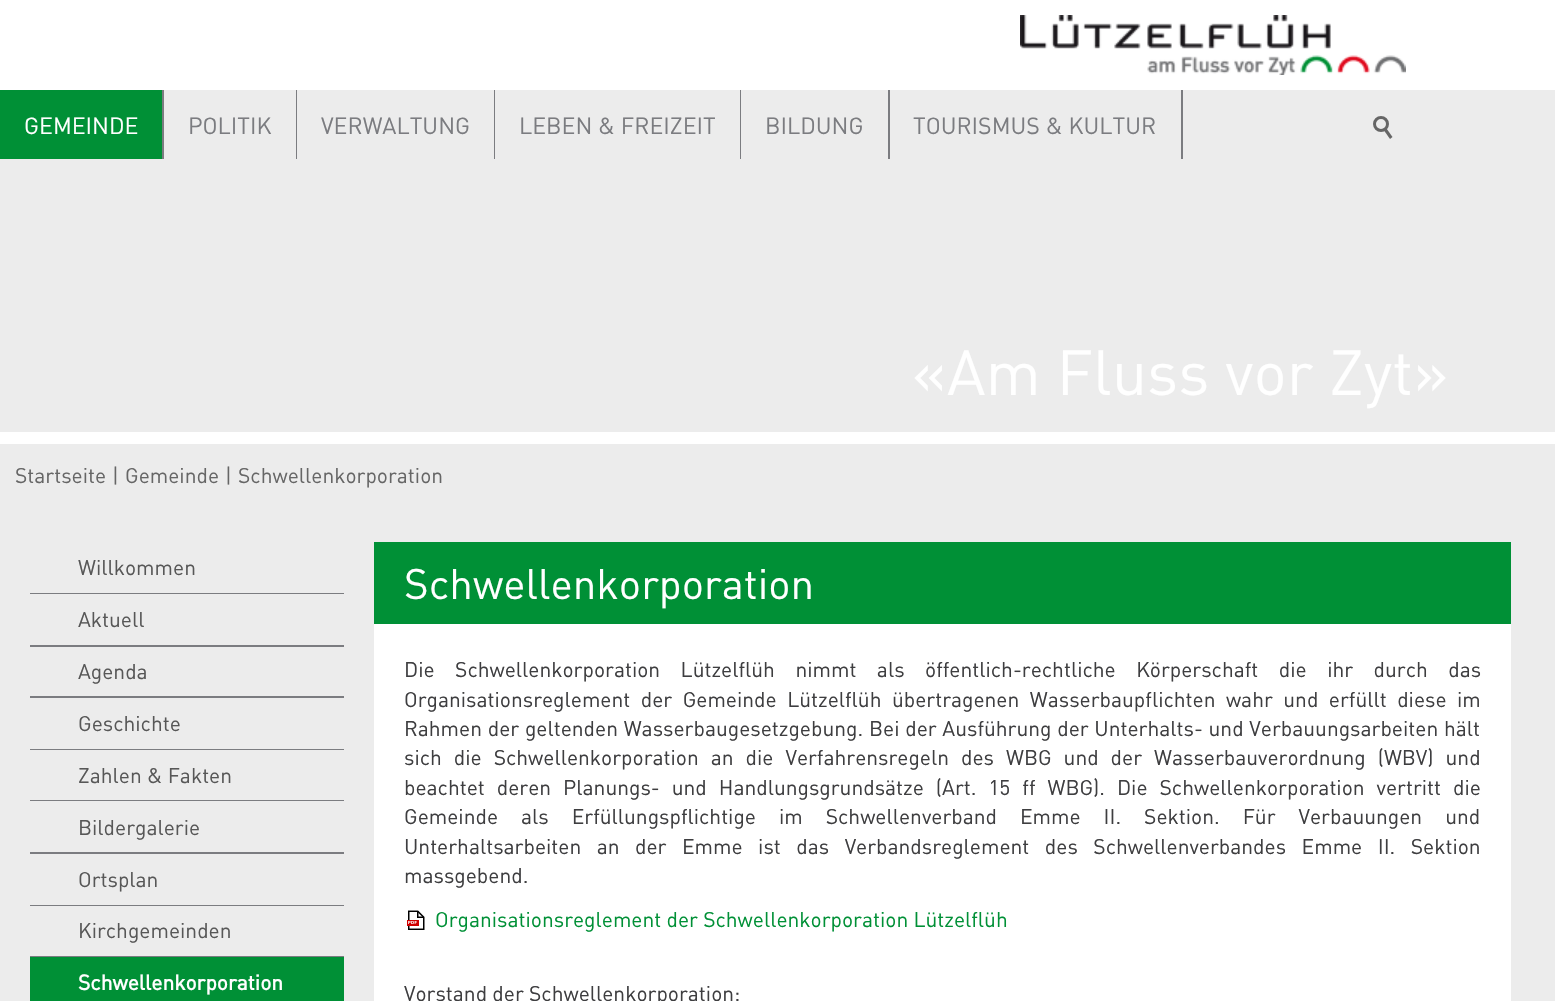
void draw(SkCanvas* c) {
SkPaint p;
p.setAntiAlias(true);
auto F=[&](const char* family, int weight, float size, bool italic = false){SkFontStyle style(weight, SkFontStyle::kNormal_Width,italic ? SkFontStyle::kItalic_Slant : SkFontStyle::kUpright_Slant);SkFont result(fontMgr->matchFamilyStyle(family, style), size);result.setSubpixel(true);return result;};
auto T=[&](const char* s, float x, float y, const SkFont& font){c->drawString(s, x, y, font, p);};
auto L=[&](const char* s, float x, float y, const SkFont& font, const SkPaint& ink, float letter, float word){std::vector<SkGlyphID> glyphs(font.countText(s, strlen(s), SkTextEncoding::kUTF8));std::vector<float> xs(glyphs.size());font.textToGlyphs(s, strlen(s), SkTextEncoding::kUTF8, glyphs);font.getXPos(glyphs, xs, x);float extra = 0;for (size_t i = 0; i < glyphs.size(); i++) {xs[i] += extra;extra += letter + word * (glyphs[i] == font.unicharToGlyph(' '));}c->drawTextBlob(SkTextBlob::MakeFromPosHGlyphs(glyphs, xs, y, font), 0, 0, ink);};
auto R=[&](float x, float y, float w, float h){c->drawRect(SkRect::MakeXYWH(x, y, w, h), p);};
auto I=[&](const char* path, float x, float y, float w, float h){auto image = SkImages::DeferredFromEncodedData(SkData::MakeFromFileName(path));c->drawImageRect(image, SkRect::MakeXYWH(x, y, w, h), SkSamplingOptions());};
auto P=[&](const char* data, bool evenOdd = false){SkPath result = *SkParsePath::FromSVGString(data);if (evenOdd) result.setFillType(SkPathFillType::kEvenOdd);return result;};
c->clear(0xffffffff);
p.setColor(0xffececec);
R(0,159,1555,842);
I("1.png",1020,15,386,60);
R(164,90,1391,69);
p.setColor(0xff7b7c80);
R(162,90,2,69);
p.setColor(0xff009036);
R(0,90,162,69);
auto f1 = F("DIN",400,23.1);
p.setColor(0xffffffff);
T("GEMEINDE",24,134,f1);
p.setColor(0xff7b7c80);
R(296,90,1,69);
T("POLITIK",188,134,f1);
R(494,90,1,69);
T("VERWALTUNG",321,134,f1);
R(740,90,1,69);
T("LEBEN & FREIZEIT",519,134,f1);
R(888,90,2,69);
T("BILDUNG",765,134,f1);
R(1181,90,2,69);
T("TOURISMUS & KULTUR",913,134,f1);
p.setStroke(true);
p.setStrokeWidth(3);
p.setColor(0xff666666);
c->drawCircle(1381,124,6.5,p);
p.setStroke(false);
c->drawPath(P("M1386.5 128.5l6 8.5l-2.5 2l-6-8.5z"),p);
auto f2 = F("DIN",400,63);
p.setColor(0xffffffff);
T("«Am Fluss vor Zyt»",912,395,f2);
R(0,432,1555,12);
auto f3 = F("DIN",400,21);
p.setColor(0xff666666);
T("Startseite",15,483,f3);
T("|",112,483,f3);
T("Gemeinde",125,483,f3);
T("|",225,483,f3);
T("Schwellenkorporation",238,483,f3);
p.setColor(0xff7b7c80);
R(30,593,314,1);
p.setColor(0xff575757);
T("Willkommen",78,575,f3);
p.setColor(0xff7b7c80);
R(30,645,314,2);
p.setColor(0xff575757);
T("Aktuell",78,627,f3);
p.setColor(0xff7b7c80);
R(30,696,314,2);
p.setColor(0xff575757);
T("Agenda",78,679,f3);
p.setColor(0xff7b7c80);
R(30,749,314,1);
p.setColor(0xff575757);
T("Geschichte",78,731,f3);
p.setColor(0xff7b7c80);
R(30,800,314,1);
p.setColor(0xff575757);
T("Zahlen & Fakten",78,783,f3);
p.setColor(0xff7b7c80);
R(30,852,314,2);
p.setColor(0xff575757);
T("Bildergalerie",78,835,f3);
p.setColor(0xff7b7c80);
R(30,905,314,1);
p.setColor(0xff575757);
T("Ortsplan",78,887,f3);
p.setColor(0xff7b7c80);
R(30,956,314,1);
p.setColor(0xff575757);
T("Kirchgemeinden",78,938,f3);
p.setColor(0xff009036);
R(30,957,314,44);
auto f4 = F("DIN",700,21);
p.setColor(0xffffffff);
T("Schwellenkorporation",78,990,f4);
R(374,624,1137,377);
p.setColor(0xff009036);
R(374,542,1137,82);
auto f5 = F("DIN",400,42);
p.setColor(0xffffffff);
T("Schwellenkorporation",404,599,f5);
p.setColor(0xff3e3e40);
L("Die Schwellenkorporation Lützelflüh nimmt als öffentlich-rechtliche Körperschaft die ihr durch das",404,677,f3,p,0,15.25);
L("Organisationsreglement der Gemeinde Lützelflüh übertragenen Wasserbaupflichten wahr und erfüllt diese im",404,707,f3,p,0,5.25);
L("Rahmen der geltenden Wasserbaugesetzgebung.",404,736,f3,p,0,.5);
L("Bei der Ausführung der Unterhalts- und Verbauungsarbeiten hält",869,736,f3,p,0,.5);
L("sich die Schwellenkorporation an die Verfahrensregeln des WBG und der Wasserbauverordnung (WBV) und",404,765,f3,p,0,6.75);
L("beachtet deren Planungs- und Handlungsgrundsätze (Art. 15 ff WBG). Die Schwellenkorporation vertritt die",404,795,f3,p,0,6.75);
L("Gemeinde als Erfüllungspflichtige im Schwellenverband Emme II. Sektion. Für Verbauungen und",404,824,f3,p,0,17.75);
L("Unterhaltsarbeiten an der Emme ist das Verbandsreglement des Schwellenverbandes Emme II. Sektion",404,854,f3,p,0,10.25);
T("massgebend.",404,883,f3);
I("2.png",407,910,18,20);
p.setColor(0xff009036);
T("Organisationsreglement der Schwellenkorporation Lützelflüh",435,927,f3);
p.setColor(0xff3e3e40);
T("Vorstand der Schwellenkorporation:",404,1001,f3);
}
